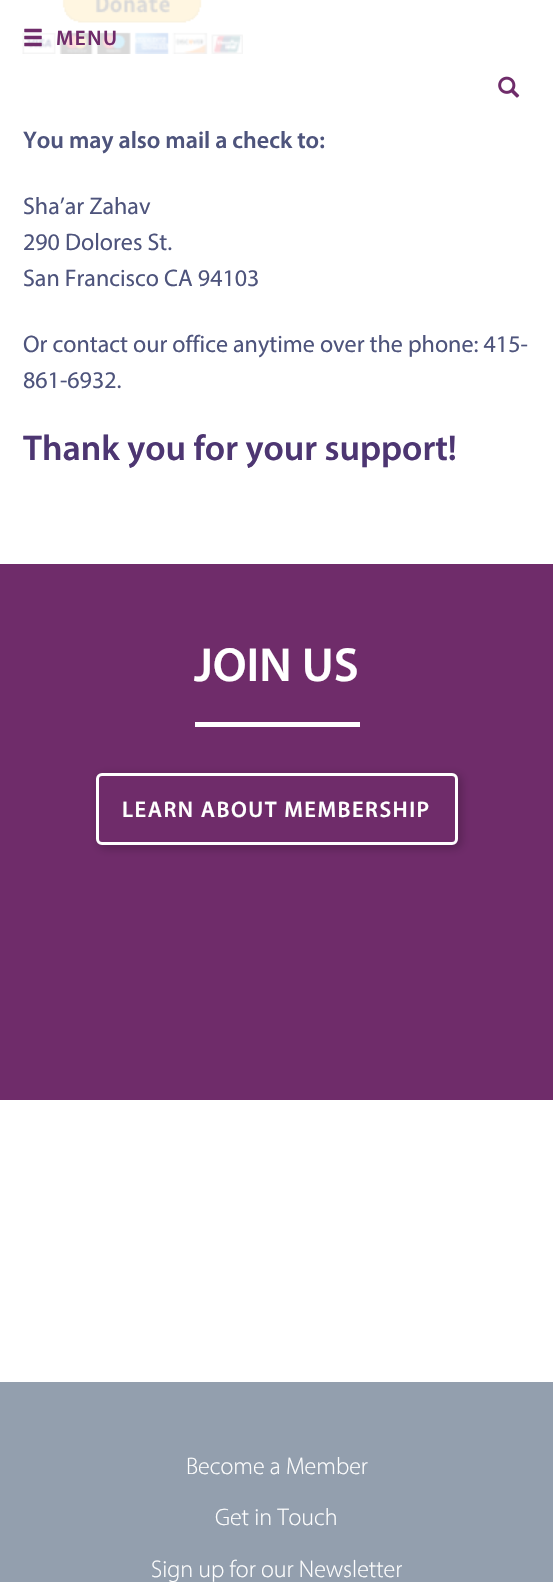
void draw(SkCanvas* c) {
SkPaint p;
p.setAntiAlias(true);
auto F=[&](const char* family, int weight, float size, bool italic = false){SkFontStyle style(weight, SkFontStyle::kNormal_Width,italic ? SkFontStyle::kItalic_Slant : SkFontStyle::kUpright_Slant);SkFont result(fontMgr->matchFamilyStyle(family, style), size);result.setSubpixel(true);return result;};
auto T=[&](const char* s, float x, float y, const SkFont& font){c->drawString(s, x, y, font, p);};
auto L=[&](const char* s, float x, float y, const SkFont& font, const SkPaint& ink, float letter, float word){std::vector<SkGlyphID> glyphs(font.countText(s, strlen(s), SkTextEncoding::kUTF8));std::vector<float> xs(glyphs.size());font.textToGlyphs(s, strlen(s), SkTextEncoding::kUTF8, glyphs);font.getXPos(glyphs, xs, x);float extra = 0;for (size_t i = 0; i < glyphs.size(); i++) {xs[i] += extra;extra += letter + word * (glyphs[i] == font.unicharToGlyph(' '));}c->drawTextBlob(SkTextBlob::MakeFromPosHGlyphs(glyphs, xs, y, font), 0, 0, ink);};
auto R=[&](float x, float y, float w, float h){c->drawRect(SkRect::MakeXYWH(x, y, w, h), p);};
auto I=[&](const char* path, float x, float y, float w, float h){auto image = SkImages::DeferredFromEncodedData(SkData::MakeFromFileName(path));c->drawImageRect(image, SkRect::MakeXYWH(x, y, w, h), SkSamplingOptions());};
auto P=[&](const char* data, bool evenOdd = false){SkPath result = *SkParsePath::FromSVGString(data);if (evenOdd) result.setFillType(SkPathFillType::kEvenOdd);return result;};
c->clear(0xffffffff);
I("3.png",22,0,221,54);
I("1.png",24,28,18,19);
auto f1 = F("Myriad",600,21);
p.setColor(0xff6f2c6a);
L("MENU",56,45,f1,p,1.5,0);
I("2.png",498,76,22,22);
auto f2 = F("Myriad",600,24);
p.setColor(0xff4e547c);
T("You may also mail a check to:",23,148,f2);
auto f3 = F("Myriad",400,24);
T("Sha’ar Zahav",23,214,f3);
T("290 Dolores St.",23,250,f3);
T("San Francisco CA 94103",23,286,f3);
T("Or contact our office anytime over the phone: 415-",23,352,f3);
T("861-6932.",23,388,f3);
auto f4 = F("Myriad",600,36);
p.setColor(0xff4d3672);
T("Thank you for your support!",23,460,f4);
p.setColor(0xff6f2c6a);
R(0,564,553,536);
auto f5 = F("Myriad",600,48);
p.setColor(0xffffffff);
T("JOIN US",194,681,f5);
R(195,722,165,5);
c->save();
c->clipPath(P("M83 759h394v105h-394zm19 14h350c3.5 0 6 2.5 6 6v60c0 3.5-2.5 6-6 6h-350c-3.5 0-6-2.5-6-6v-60c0-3.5 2.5-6 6-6z",true),true);
p.setColor(0x33000000);
p.setMaskFilter(SkMaskFilter::MakeBlur(kNormal_SkBlurStyle, 4.5));
c->drawRoundRect(SkRect::MakeXYWH(98,774,364,75),8,8,p);
p.setMaskFilter(nullptr);
c->restore();
p.setStroke(true);
p.setStrokeWidth(3);
p.setColor(0xffffffff);
c->drawRoundRect(SkRect::MakeXYWH(97.5,774.5,359,69),4.5,4.5,p);
auto f6 = F("Myriad",600,22.5);
p.setStroke(false);
L("LEARN ABOUT MEMBERSHIP",122,817,f6,p,1.5,0);
p.setColor(0xff939fae);
R(0,1382,553,200);
auto f7 = F("Myriad",300,24);
p.setColor(0xffffffff);
T("Become a Member",186,1474,f7);
T("Get in Touch",215,1525,f7);
T("Sign up for our Newsletter",151,1577,f7);
}
